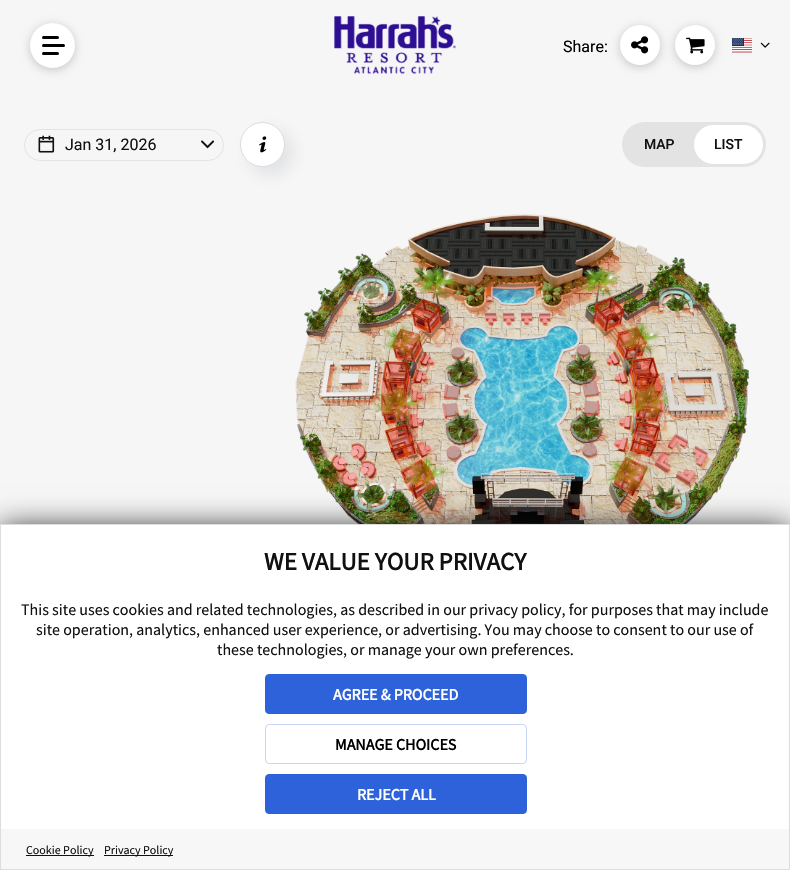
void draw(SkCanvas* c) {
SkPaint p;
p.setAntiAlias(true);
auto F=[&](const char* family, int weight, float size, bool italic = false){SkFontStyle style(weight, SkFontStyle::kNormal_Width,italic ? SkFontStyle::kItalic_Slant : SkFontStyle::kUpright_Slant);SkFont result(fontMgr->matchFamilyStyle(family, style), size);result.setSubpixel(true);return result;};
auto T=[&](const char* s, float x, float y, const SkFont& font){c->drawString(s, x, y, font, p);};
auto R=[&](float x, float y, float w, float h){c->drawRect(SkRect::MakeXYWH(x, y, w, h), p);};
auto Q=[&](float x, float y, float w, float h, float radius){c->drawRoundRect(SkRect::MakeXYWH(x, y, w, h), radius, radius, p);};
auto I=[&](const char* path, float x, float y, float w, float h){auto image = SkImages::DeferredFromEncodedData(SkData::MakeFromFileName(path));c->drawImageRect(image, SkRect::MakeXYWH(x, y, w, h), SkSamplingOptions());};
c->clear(0xfff6f6f6);
p.setColor(0x33000000);
p.setMaskFilter(SkMaskFilter::MakeBlur(kNormal_SkBlurStyle, 5));
c->drawRoundRect(SkRect::MakeXYWH(30,25,45,45),22.5,22.5,p);
p.setMaskFilter(nullptr);
p.setColor(0xffffffff);
c->drawCircle(52.5,45.5,22.5,p);
p.setColor(0xff000000);
Q(42,36,17,3,1.5);
Q(42,44,23,3,1.5);
Q(42,52,17,3,1.5);
I("1.png",334,16,122,58);
auto f1 = F("Roboto",400,16);
T("Share:",563,52,f1);
p.setColor(0x33000000);
p.setMaskFilter(SkMaskFilter::MakeBlur(kNormal_SkBlurStyle, 5));
c->drawRoundRect(SkRect::MakeXYWH(620,27,40,40),20,20,p);
p.setMaskFilter(nullptr);
p.setColor(0xffffffff);
c->drawCircle(640,45,20,p);
I("2.png",631,36,18,18);
p.setColor(0x33000000);
p.setMaskFilter(SkMaskFilter::MakeBlur(kNormal_SkBlurStyle, 5));
c->drawRoundRect(SkRect::MakeXYWH(675,27,40,40),20,20,p);
p.setMaskFilter(nullptr);
p.setColor(0xffffffff);
c->drawCircle(695,45,20,p);
I("3.png",686,37,19,17);
I("4.png",732,38,20,15);
I("5.png",760,42,10,6);
p.setStroke(true);
p.setStrokeWidth(1);
p.setColor(0xffe3e3e3);
c->drawRoundRect(SkRect::MakeXYWH(24.5,129.5,199,31),15.5,15.5,p);
I("6.png",38,135,17,18);
p.setStroke(false);
p.setColor(0xff111111);
T("Jan 31, 2026",65,150,f1);
I("7.png",201,140,14,9);
p.setColor(0x1f3f4c60);
p.setMaskFilter(SkMaskFilter::MakeBlur(kNormal_SkBlurStyle, 8));
c->drawRoundRect(SkRect::MakeXYWH(248,130,45,45),22.5,22.5,p);
p.setMaskFilter(nullptr);
p.setColor(0xffffffff);
c->drawCircle(262.5,144.5,22.5,p);
p.setStroke(true);
p.setColor(0x24111111);
c->drawCircle(262.5,144.5,22,p);
I("8.png",259,136,8,17);
p.setStroke(false);
p.setColor(0xffe3e3e3);
Q(622,122,144,45,22.5);
auto f2 = F("Roboto",500,14);
p.setColor(0xff111111);
T("MAP",644,149,f2);
p.setColor(0xffffffff);
Q(694,125,69,39,19.5);
p.setColor(0xff111111);
T("LIST",714,149,f2);
I("9.png",295,214,455,310);
p.setMaskFilter(SkMaskFilter::MakeBlur(kNormal_SkBlurStyle, 15));
c->drawRect(SkRect::MakeXYWH(0,529,790,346),p);
p.setMaskFilter(nullptr);
p.setColor(0xffffffff);
R(1,525,788,304);
p.setStroke(true);
p.setColor(0xffdddddd);
c->drawRect(SkRect::MakeXYWH(.5,524.5,789,345),p);
auto f3 = F("Source Sans Pro",700,25);
p.setStroke(false);
p.setColor(0xff111111);
T("WE VALUE YOUR PRIVACY",264,570,f3);
auto f4 = F("Source Sans Pro",400,16);
T("This site uses cookies and related technologies, as described in our privacy policy, for purposes that may include",21,615,f4);
T("site operation, analytics, enhanced user experience, or advertising. You may choose to consent to our use of",36,635,f4);
T("these technologies, or manage your own preferences.",217,655,f4);
p.setColor(0xff2e62db);
c->drawRoundRect(SkRect::MakeXYWH(265.5,674.5,261,39),3.5,3.5,p);
p.setStroke(true);
c->drawRoundRect(SkRect::MakeXYWH(265.5,674.5,261,39),3.5,3.5,p);
auto f5 = F("Source Sans Pro",700,16);
p.setStroke(false);
p.setColor(0xffffffff);
T("AGREE & PROCEED",333,700,f5);
p.setStroke(true);
p.setColor(0xffc7d5f5);
c->drawRoundRect(SkRect::MakeXYWH(265.5,724.5,261,39),3.5,3.5,p);
p.setStroke(false);
p.setColor(0xff000000);
T("MANAGE CHOICES",335,750,f5);
p.setColor(0xff2e62db);
c->drawRoundRect(SkRect::MakeXYWH(265.5,774.5,261,39),3.5,3.5,p);
p.setStroke(true);
c->drawRoundRect(SkRect::MakeXYWH(265.5,774.5,261,39),3.5,3.5,p);
p.setStroke(false);
p.setColor(0xffffffff);
T("REJECT ALL",357,800,f5);
p.setColor(0xfff7f7f7);
R(1,829,788,40);
p.setColor(0xff111111);
R(26,855,68,1);
auto f6 = F("Source Sans Pro",400,12);
T("Cookie Policy",26,854,f6);
R(104,855,69,1);
T("Privacy Policy",104,854,f6);
}
